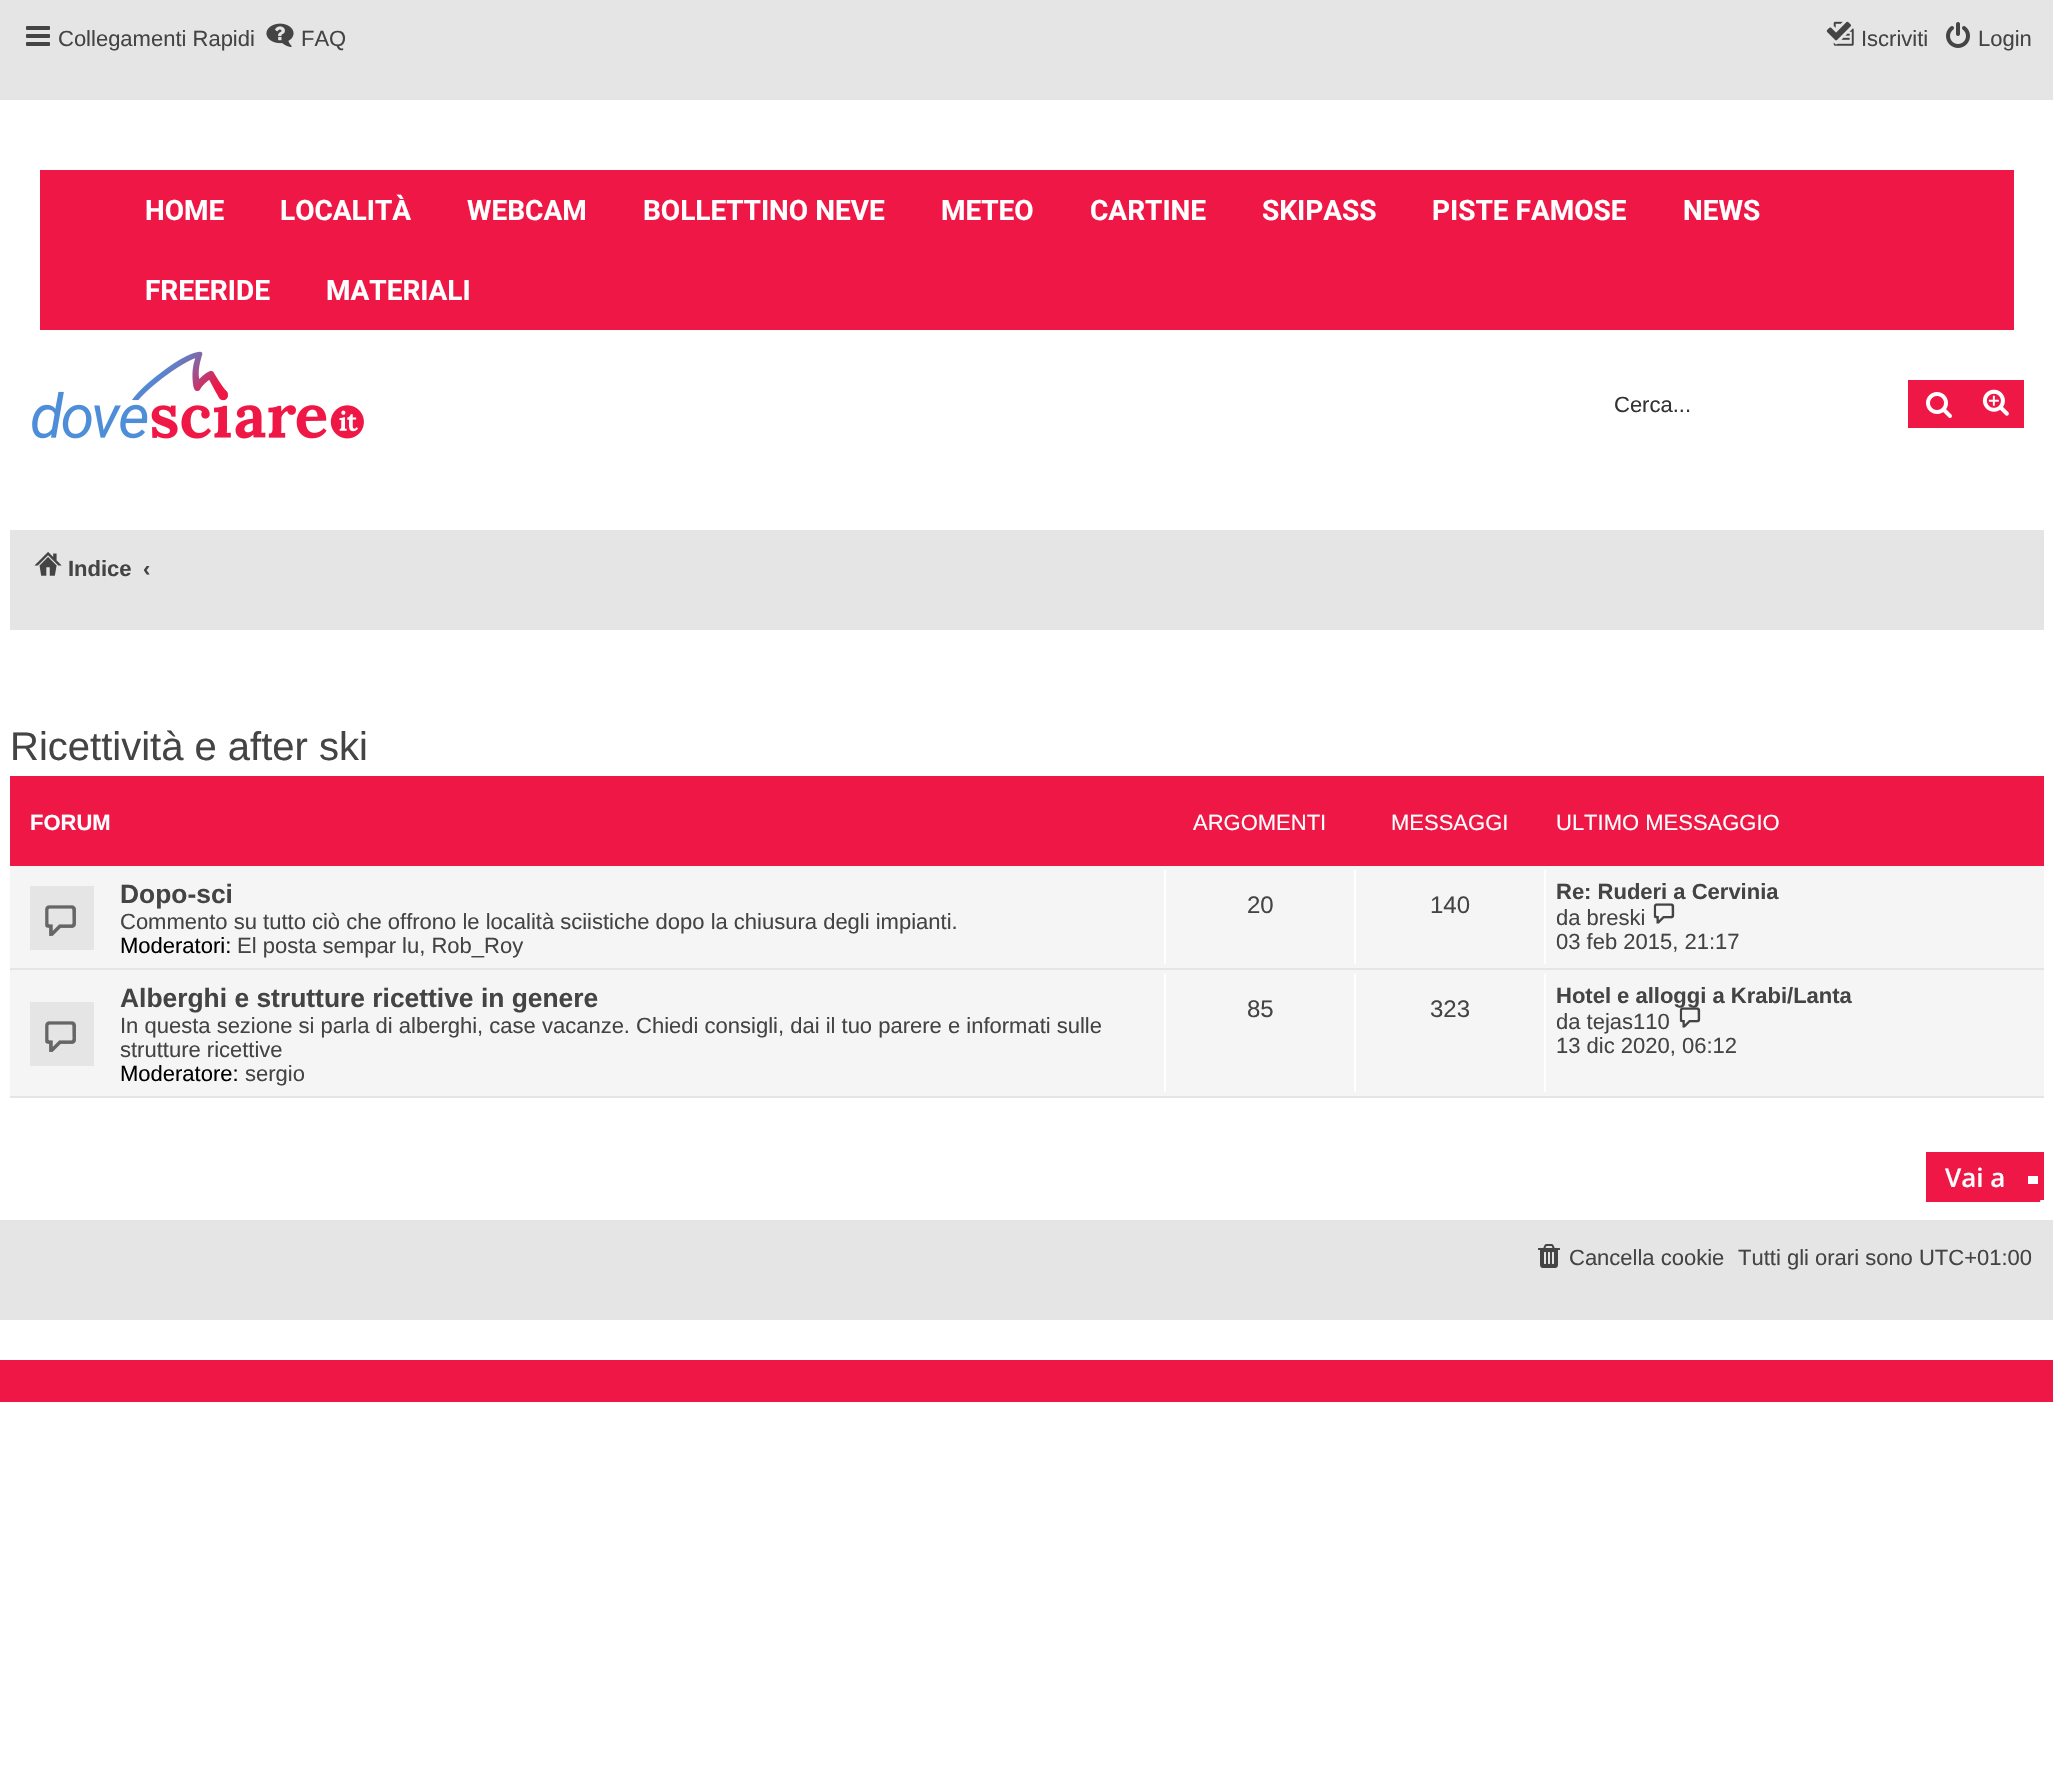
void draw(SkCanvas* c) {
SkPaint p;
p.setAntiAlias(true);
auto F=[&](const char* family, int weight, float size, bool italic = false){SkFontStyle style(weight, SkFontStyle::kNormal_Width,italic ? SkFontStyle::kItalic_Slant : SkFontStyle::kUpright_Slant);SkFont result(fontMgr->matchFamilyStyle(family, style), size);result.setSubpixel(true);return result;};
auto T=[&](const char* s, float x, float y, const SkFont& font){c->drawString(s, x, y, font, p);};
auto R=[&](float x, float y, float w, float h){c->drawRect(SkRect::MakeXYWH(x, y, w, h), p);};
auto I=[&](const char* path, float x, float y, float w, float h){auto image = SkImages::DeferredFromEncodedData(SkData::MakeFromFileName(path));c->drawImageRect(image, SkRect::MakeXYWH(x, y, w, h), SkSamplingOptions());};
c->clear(0xffffffff);
p.setColor(0xffe5e5e5);
R(0,0,2053,100);
I("1.png",26,26,24,20);
auto f1 = F("Liberation Sans",400,22);
p.setColor(0xff444444);
T("Collegamenti Rapidi",58,46,f1);
I("2.png",266,23,28,24);
T("FAQ",301,46,f1);
I("3.png",1826,21,28,25);
T("Iscriviti",1861,46,f1);
I("4.png",1946,22,24,26);
T("Login",1978,46,f1);
p.setColor(0xffee1745);
R(40,170,1974,160);
auto f2 = F("Roboto",700,28);
p.setColor(0xffffffff);
T("HOME",145,220,f2);
T("LOCALITÀ",280,220,f2);
T("WEBCAM",467,220,f2);
T("BOLLETTINO NEVE",643,220,f2);
T("METEO",941,220,f2);
T("CARTINE",1090,220,f2);
T("SKIPASS",1262,220,f2);
T("PISTE FAMOSE",1432,220,f2);
T("NEWS",1683,220,f2);
T("FREERIDE",145,300,f2);
T("MATERIALI",326,300,f2);
I("5.png",32,351,332,88);
p.setColor(0xffee1745);
R(1908,380,116,48);
I("6.png",1926,392,26,26);
p.setColor(0xff333333);
T("Cerca...",1614,412,f1);
I("7.png",1982,389,27,27);
p.setColor(0xffe5e5e5);
R(10,530,2034,100);
I("8.png",34,552,28,24);
auto f3 = F("Liberation Sans",700,22);
p.setColor(0xff444444);
T("Indice",68,576,f3);
T("‹",143,576,f3);
auto f4 = F("Liberation Sans",400,40);
T("Ricettività e after ski",10,760,f4);
p.setColor(0xffee1745);
R(10,776,2034,90);
p.setColor(0xffffffff);
T("FORUM",30,830,f3);
T("ARGOMENTI",1193,830,f1);
T("MESSAGGI",1391,830,f1);
T("ULTIMO MESSAGGIO",1556,830,f1);
p.setColor(0xfff5f5f5);
R(10,866,2034,230);
p.setColor(0xffe5e5e5);
R(10,968,2034,2);
R(30,886,64,64);
I("9.png",45,905,31,31);
auto f5 = F("Liberation Sans",700,26.4);
p.setColor(0xff444444);
T("Dopo-sci",120,903,f5);
T("Commento su tutto ciò che offrono le località sciistiche dopo la chiusura degli impianti.",120,929,f1);
p.setColor(0xff000000);
T("Moderatori:",120,953,f1);
p.setColor(0xff444444);
T("El posta sempar lu, Rob_Roy",237,953,f1);
p.setColor(0xffffffff);
R(1164,870,2,94);
auto f6 = F("Liberation Sans",400,24);
p.setColor(0xff444444);
T("20",1247,913,f6);
p.setColor(0xffffffff);
R(1354,870,2,94);
p.setColor(0xff444444);
T("140",1430,913,f6);
p.setColor(0xffffffff);
R(1544,870,2,94);
p.setColor(0xff444444);
T("Re: Ruderi a Cervinia",1556,899,f3);
T("da breski",1556,925,f1);
I("10.png",1653,903,22,21);
T("03 feb 2015, 21:17",1556,949,f1);
p.setColor(0xffe5e5e5);
R(10,1096,2034,2);
R(30,1002,64,64);
I("9.png",45,1021,31,31);
p.setColor(0xff444444);
T("Alberghi e strutture ricettive in genere",120,1007,f5);
T("In questa sezione si parla di alberghi, case vacanze. Chiedi consigli, dai il tuo parere e informati sulle",120,1033,f1);
T("strutture ricettive",120,1057,f1);
p.setColor(0xff000000);
T("Moderatore:",120,1081,f1);
p.setColor(0xff444444);
T("sergio",245,1081,f1);
p.setColor(0xffffffff);
R(1164,974,2,118);
p.setColor(0xff444444);
T("85",1247,1017,f6);
p.setColor(0xffffffff);
R(1354,974,2,118);
p.setColor(0xff444444);
T("323",1430,1017,f6);
p.setColor(0xffffffff);
R(1544,974,2,118);
p.setColor(0xff444444);
T("Hotel e alloggi a Krabi/Lanta",1556,1003,f3);
T("da tejas110",1556,1029,f1);
I("11.png",1679,1007,22,21);
T("13 dic 2020, 06:12",1556,1053,f1);
p.setColor(0xffee1745);
R(1926,1152,118,50);
auto f7 = F("Open Sans",600,26);
p.setColor(0xffffffff);
T("Vai a",1945,1187,f7);
R(2028,1176,10,8);
I("12.png",2040,1200,4,2);
p.setColor(0xffe5e5e5);
R(0,1220,2053,100);
I("13.png",1538,1244,22,24);
p.setColor(0xff444444);
T("Cancella cookie",1569,1265,f1);
T("Tutti gli orari sono UTC+01:00",1738,1265,f1);
p.setColor(0xffee1745);
R(0,1360,2053,42);
}
